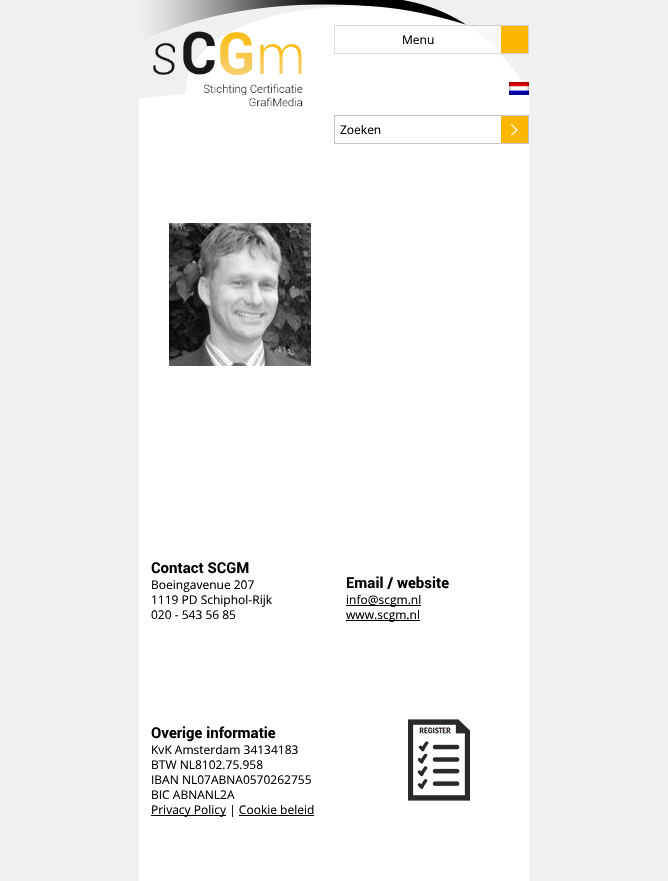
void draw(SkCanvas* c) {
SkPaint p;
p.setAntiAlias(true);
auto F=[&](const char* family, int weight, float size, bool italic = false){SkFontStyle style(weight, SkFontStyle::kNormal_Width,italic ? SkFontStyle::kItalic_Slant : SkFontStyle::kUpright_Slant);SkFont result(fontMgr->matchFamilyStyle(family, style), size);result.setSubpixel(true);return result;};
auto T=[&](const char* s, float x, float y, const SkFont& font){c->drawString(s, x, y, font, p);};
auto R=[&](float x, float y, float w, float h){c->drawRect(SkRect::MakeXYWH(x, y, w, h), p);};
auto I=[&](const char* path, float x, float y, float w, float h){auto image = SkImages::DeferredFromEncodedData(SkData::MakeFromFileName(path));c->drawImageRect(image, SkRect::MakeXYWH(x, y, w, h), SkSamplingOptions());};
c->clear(0xfff0f0f0);
p.setColor(0xffffffff);
R(139,5,390,876);
I("1.png",139,0,390,99);
I("2.png",153,31,150,76);
p.setColor(0x80ffffff);
R(469,26,32,27);
p.setStroke(true);
p.setStrokeWidth(1);
p.setColor(0x21000000);
c->drawRect(SkRect::MakeXYWH(334.5,25.5,194,28),p);
auto f1 = F("Open Sans",400,12);
p.setStroke(false);
p.setColor(0xff000000);
T("Menu",402,44,f1);
p.setColor(0xfffbb601);
R(501,26,27,27);
I("3.png",509,82,20,13);
p.setStroke(true);
p.setColor(0xffc4c4c4);
c->drawRect(SkRect::MakeXYWH(334.5,115.5,194,28),p);
p.setStroke(false);
p.setColor(0xff000000);
T("Zoeken",340,134,f1);
p.setColor(0xfffbb601);
R(501,116,27,27);
I("4.png",511,124,7,12);
I("5.png",169,223,142,143);
auto f2 = F("Roboto",700,15);
p.setColor(0xff000000);
T("Contact SCGM",151,573,f2);
T("Boeingavenue 207",151,589,f1);
T("1119 PD Schiphol-Rijk",151,604,f1);
T("020 - 543 56 85",151,619,f1);
T("Email / website",346,588,f2);
R(346,605,75,1);
T("info@scgm.nl",346,604,f1);
R(346,620,74,1);
T("www.scgm.nl",346,619,f1);
T("Overige informatie",151,738,f2);
T("KvK Amsterdam 34134183",151,754,f1);
T("BTW NL8102.75.958",151,769,f1);
T("IBAN NL07ABNA0570262755",151,784,f1);
T("BIC ABNANL2A",151,799,f1);
R(151,815,75,1);
T("Privacy Policy | Cookie beleid",151,814,f1);
R(239,815,75,1);
I("6.png",408,719,62,82);
}
